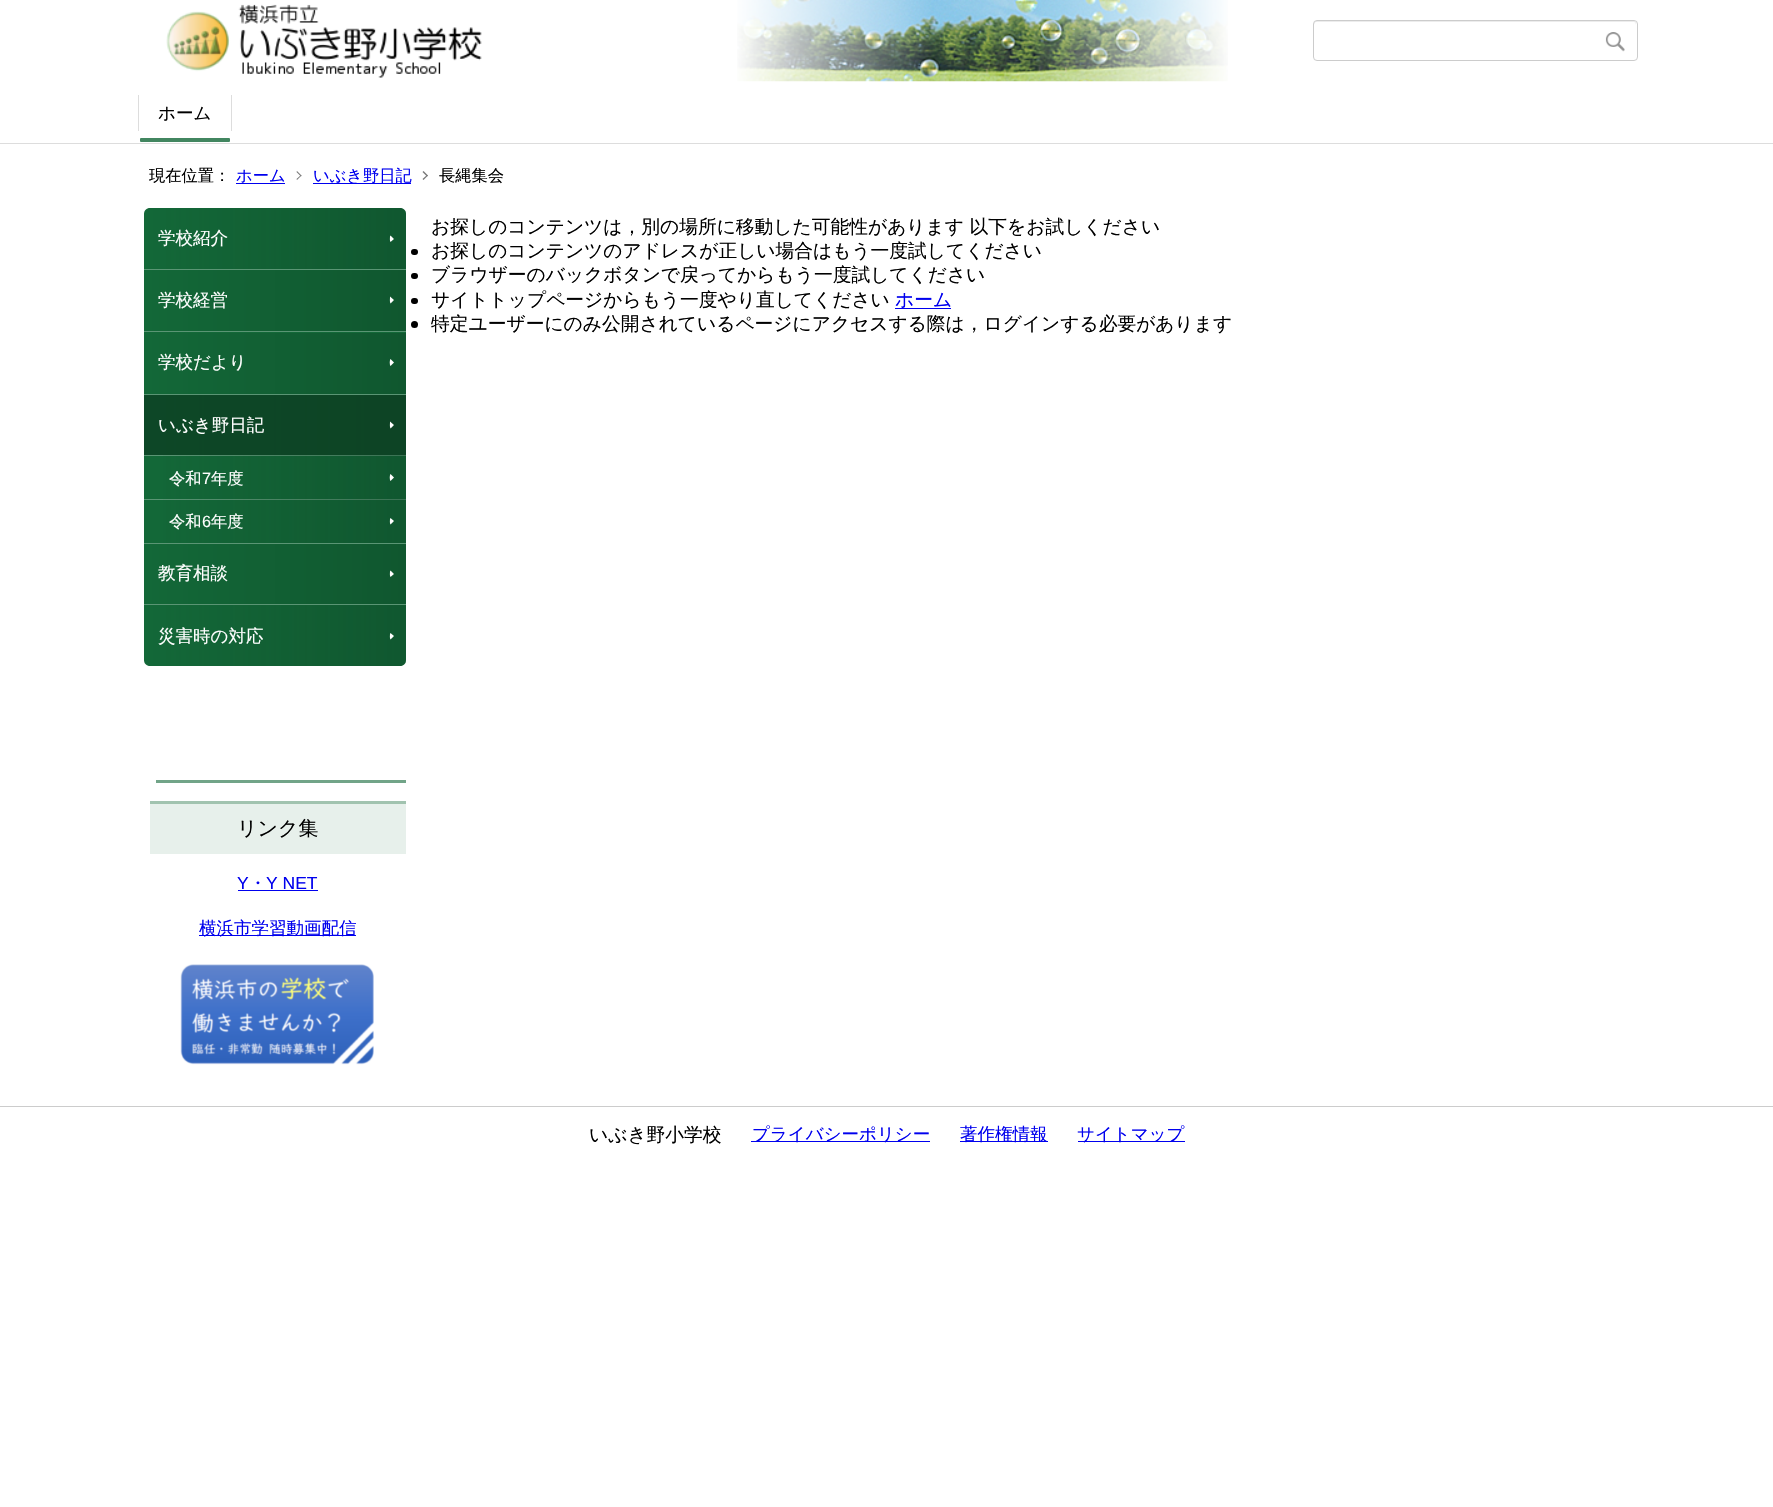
void draw(SkCanvas* c) {
SkPaint p;
p.setAntiAlias(true);
auto F=[&](const char* family, int weight, float size, bool italic = false){SkFontStyle style(weight, SkFontStyle::kNormal_Width,italic ? SkFontStyle::kItalic_Slant : SkFontStyle::kUpright_Slant);SkFont result(fontMgr->matchFamilyStyle(family, style), size);result.setSubpixel(true);return result;};
auto T=[&](const char* s, float x, float y, const SkFont& font){c->drawString(s, x, y, font, p);};
auto R=[&](float x, float y, float w, float h){c->drawRect(SkRect::MakeXYWH(x, y, w, h), p);};
auto Q=[&](float x, float y, float w, float h, float radius){c->drawRoundRect(SkRect::MakeXYWH(x, y, w, h), radius, radius, p);};
auto I=[&](const char* path, float x, float y, float w, float h){auto image = SkImages::DeferredFromEncodedData(SkData::MakeFromFileName(path));c->drawImageRect(image, SkRect::MakeXYWH(x, y, w, h), SkSamplingOptions());};
auto P=[&](const char* data, bool evenOdd = false){SkPath result = *SkParsePath::FromSVGString(data);if (evenOdd) result.setFillType(SkPathFillType::kEvenOdd);return result;};
c->clear(0xffffffff);
I("1.png",737,0,491,82);
I("2.png",166,4,316,74);
p.setColor(0xffececec);
c->drawPath(P("M1316 22h318c1 0 2 2 2 3v-1c0-2-1-3-2-3h-318c-1 0-2 1-2 3v1c0-1 1-3 2-3z"),p);
p.setStroke(true);
p.setStrokeWidth(1);
p.setColor(0xffcccccc);
c->drawRoundRect(SkRect::MakeXYWH(1313.5,20.5,324,40),3.5,3.5,p);
I("3.png",1605,32,20,20);
p.setStroke(false);
p.setColor(0xffdddddd);
R(0,143,1773,1);
R(138,95,1,36);
auto f1 = F("WenQuanYi Zen Hei",500,17.5);
p.setColor(0xff000000);
T("ホーム",158,119,f1);
p.setColor(0xff428660);
Q(140,138,90,4,1);
p.setColor(0xffdddddd);
R(231,95,1,36);
auto f2 = F("WenQuanYi Zen Hei",500,16.25);
p.setColor(0xff000000);
T("現在位置：",149,181,f2);
p.setColor(0xff0000ee);
T("ホーム",236,181,f2);
R(236,183,49,1);
p.setColor(0xff777777);
c->drawPath(P("M297 171l4.5 4.5l-.5 1l-4.5-4.5z"),p);
c->drawPath(P("M301 175l.5 .5l-4.5 4.5l-.5-1z"),p);
p.setColor(0xff0000ee);
R(313,183,98,1);
T("いぶき野日記",313,181,f2);
p.setColor(0xff777777);
c->drawPath(P("M423.5 171l4.5 4.5l-1 1l-4.5-4.5z"),p);
c->drawPath(P("M427 175l1 .5l-4.5 4.5l-1-1z"),p);
p.setColor(0xff000000);
T("長縄集会",439,181,f2);
p.setColor(0xff136838);
c->drawPath(P("M150 208h250c3.5 0 6 2.5 6 6v55h-262v-55c0-3.5 2.5-6 6-6z"),p);
{
const SkColor colors[] = {0x000b3e22,0x660b3e22};
const float stops[] = {0,1};
const SkPoint ends[] = {{144,238}, {406,238}};
p.setShader(SkGradientShader::MakeLinear(ends, colors, stops, 2, SkTileMode::kClamp));
p.setAlpha(255);
}
c->drawPath(P("M150 208h250c3.5 0 6 2.5 6 6v55h-262v-55c0-3.5 2.5-6 6-6z"),p);
p.setShader(nullptr);
p.setColor(0xffffffff);
T("学校紹介",158,244,f1);
c->drawPath(P("M390 236.5l.5-1l3.5 3.5l-3.5 3c-1-1-.5-4.5-.5-5.5z"),p);
p.setColor(0xff5a9574);
R(144,269,262,1);
{
const SkColor colors[] = {0xff136838,0xff10572f};
const float stops[] = {0,1};
const SkPoint ends[] = {{144,301}, {406,301}};
p.setShader(SkGradientShader::MakeLinear(ends, colors, stops, 2, SkTileMode::kClamp));
p.setAlpha(255);
}
R(144,270,262,61);
p.setShader(nullptr);
p.setColor(0xffffffff);
T("学校経営",158,306,f1);
c->drawPath(P("M390 297.5v-1l4 3.5l-3.5 3.5c-1-1.5-.5-5-.5-6z"),p);
p.setColor(0xff136838);
R(144,332,262,1);
p.setColor(0xff5a9574);
R(144,331,262,1);
{
const SkColor colors[] = {0xff136838,0xff10572f};
const float stops[] = {0,1};
const SkPoint ends[] = {{144,363}, {406,363}};
p.setShader(SkGradientShader::MakeLinear(ends, colors, stops, 2, SkTileMode::kClamp));
p.setAlpha(255);
}
R(144,333,262,61);
p.setShader(nullptr);
p.setColor(0xffffffff);
T("学校だより",158,368,f1);
c->drawPath(P("M390.5 359l3.5 3.5l-3.5 3.5c-1-1-1-6 0-7z"),p);
p.setColor(0xff136838);
R(144,395,262,148);
p.setColor(0xff5a9574);
R(144,394,262,1);
R(144,455,262,1);
R(144,499,262,1);
{
const SkColor colors[] = {0x000b3e22,0x660b3e22};
const float stops[] = {0,1};
const SkPoint ends[] = {{144,469}, {406,469}};
p.setShader(SkGradientShader::MakeLinear(ends, colors, stops, 2, SkTileMode::kClamp));
p.setAlpha(255);
}
R(163,395,243,148);
p.setShader(nullptr);
p.setColor(0xcc0b3e22);
R(144,395,262,60);
p.setColor(0xffffffff);
T("いぶき野日記",158,431,f1);
c->drawPath(P("M390 422.5v-1l4 3.5l-3.5 3.5c-1-1.5-.5-5-.5-6z"),p);
T("令和",169,484,f2);
auto f3 = F("Liberation Sans",400,16.25);
T("7",202,484,f3);
T("年度",211,484,f2);
c->drawPath(P("M390.5 474l3.5 3.5l-3.5 3.5c-1-1-1-6 0-7z"),p);
T("令和",169,527,f2);
T("6",202,527,f3);
T("年度",211,527,f2);
c->drawPath(P("M390 519l.5-1l3.5 3l-3.5 3.5c-1-1-.5-4.5-.5-5.5z"),p);
p.setColor(0xff5a9574);
R(144,543,262,1);
{
const SkColor colors[] = {0xff136838,0xff10572f};
const float stops[] = {0,1};
const SkPoint ends[] = {{144,574}, {406,574}};
p.setShader(SkGradientShader::MakeLinear(ends, colors, stops, 2, SkTileMode::kClamp));
p.setAlpha(255);
}
R(144,544,262,60);
p.setShader(nullptr);
p.setColor(0xffffffff);
T("教育相談",158,579,f1);
c->drawPath(P("M390 571.5l.5-1l3.5 3.5l-3.5 3c-1-1-.5-4.5-.5-5.5z"),p);
p.setColor(0xff136838);
c->drawPath(P("M144 604h262v56c0 3.5-2.5 6-6 6h-250c-3.5 0-6-2.5-6-6z"),p);
p.setColor(0xff5a9574);
R(144,604,262,1);
{
const SkColor colors[] = {0x000b3e22,0x660b3e22};
const float stops[] = {0,1};
const SkPoint ends[] = {{144,636}, {406,636}};
p.setShader(SkGradientShader::MakeLinear(ends, colors, stops, 2, SkTileMode::kClamp));
p.setAlpha(255);
}
c->drawPath(P("M144 605h262v55c0 3.5-2.5 6-6 6h-250c-3.5 0-6-2.5-6-6z"),p);
p.setShader(nullptr);
p.setColor(0xffffffff);
T("災害時の対応",158,642,f1);
c->drawPath(P("M390 634l.5-1l3.5 3l-3.5 3.5c-1-1-.5-4.5-.5-5.5z"),p);
p.setColor(0xff71a488);
R(156,780,250,3);
p.setColor(0xffe7f0eb);
R(150,804,256,50);
p.setColor(0xffa1c3af);
R(150,801,256,3);
auto f4 = F("WenQuanYi Zen Hei",500,20);
p.setColor(0xff000000);
T("リンク集",237,835,f4);
auto f5 = F("Liberation Sans",400,17.5);
p.setColor(0xff0000ee);
T("Y",237,889,f5);
T("・",249,889,f1);
R(238,890,80,1);
T("Y NET",266,889,f5);
R(199,935,157,1);
T("横浜市学習動画配信",199,934,f1);
I("4.png",180,964,194,101);
auto f6 = F("WenQuanYi Zen Hei",500,18.75);
p.setColor(0xff000000);
T("お探しのコンテンツは，別の場所に移動した可能性があります 以下をお試しください",431,233,f6);
Q(411,249,7,6,3);
T("お探しのコンテンツのアドレスが正しい場合はもう一度試してください",431,257,f6);
Q(411,273,7,6,3);
T("ブラウザーのバックボタンで戻ってからもう一度試してください",431,281,f6);
Q(411,298,7,6,3);
T("サイトトップページからもう一度やり直してください",431,306,f6);
p.setColor(0xff0000ee);
T("ホーム",895,306,f6);
R(895,308,56,1);
p.setColor(0xff000000);
c->drawCircle(414.5,324.5,3.5,p);
T("特定ユーザーにのみ公開されているページにアクセスする際は，ログインする必要があります",431,330,f6);
p.setColor(0xffcccccc);
R(0,1106,1773,1);
p.setColor(0xff000000);
T("いぶき野小学校",589,1141,f6);
p.setColor(0xff0000ee);
R(751,1141,179,1);
T("プライバシーポリシー",752,1140,f1);
R(960,1141,88,1);
T("著作権情報",960,1140,f1);
R(1078,1141,107,1);
T("サイトマップ",1077,1140,f1);
}
